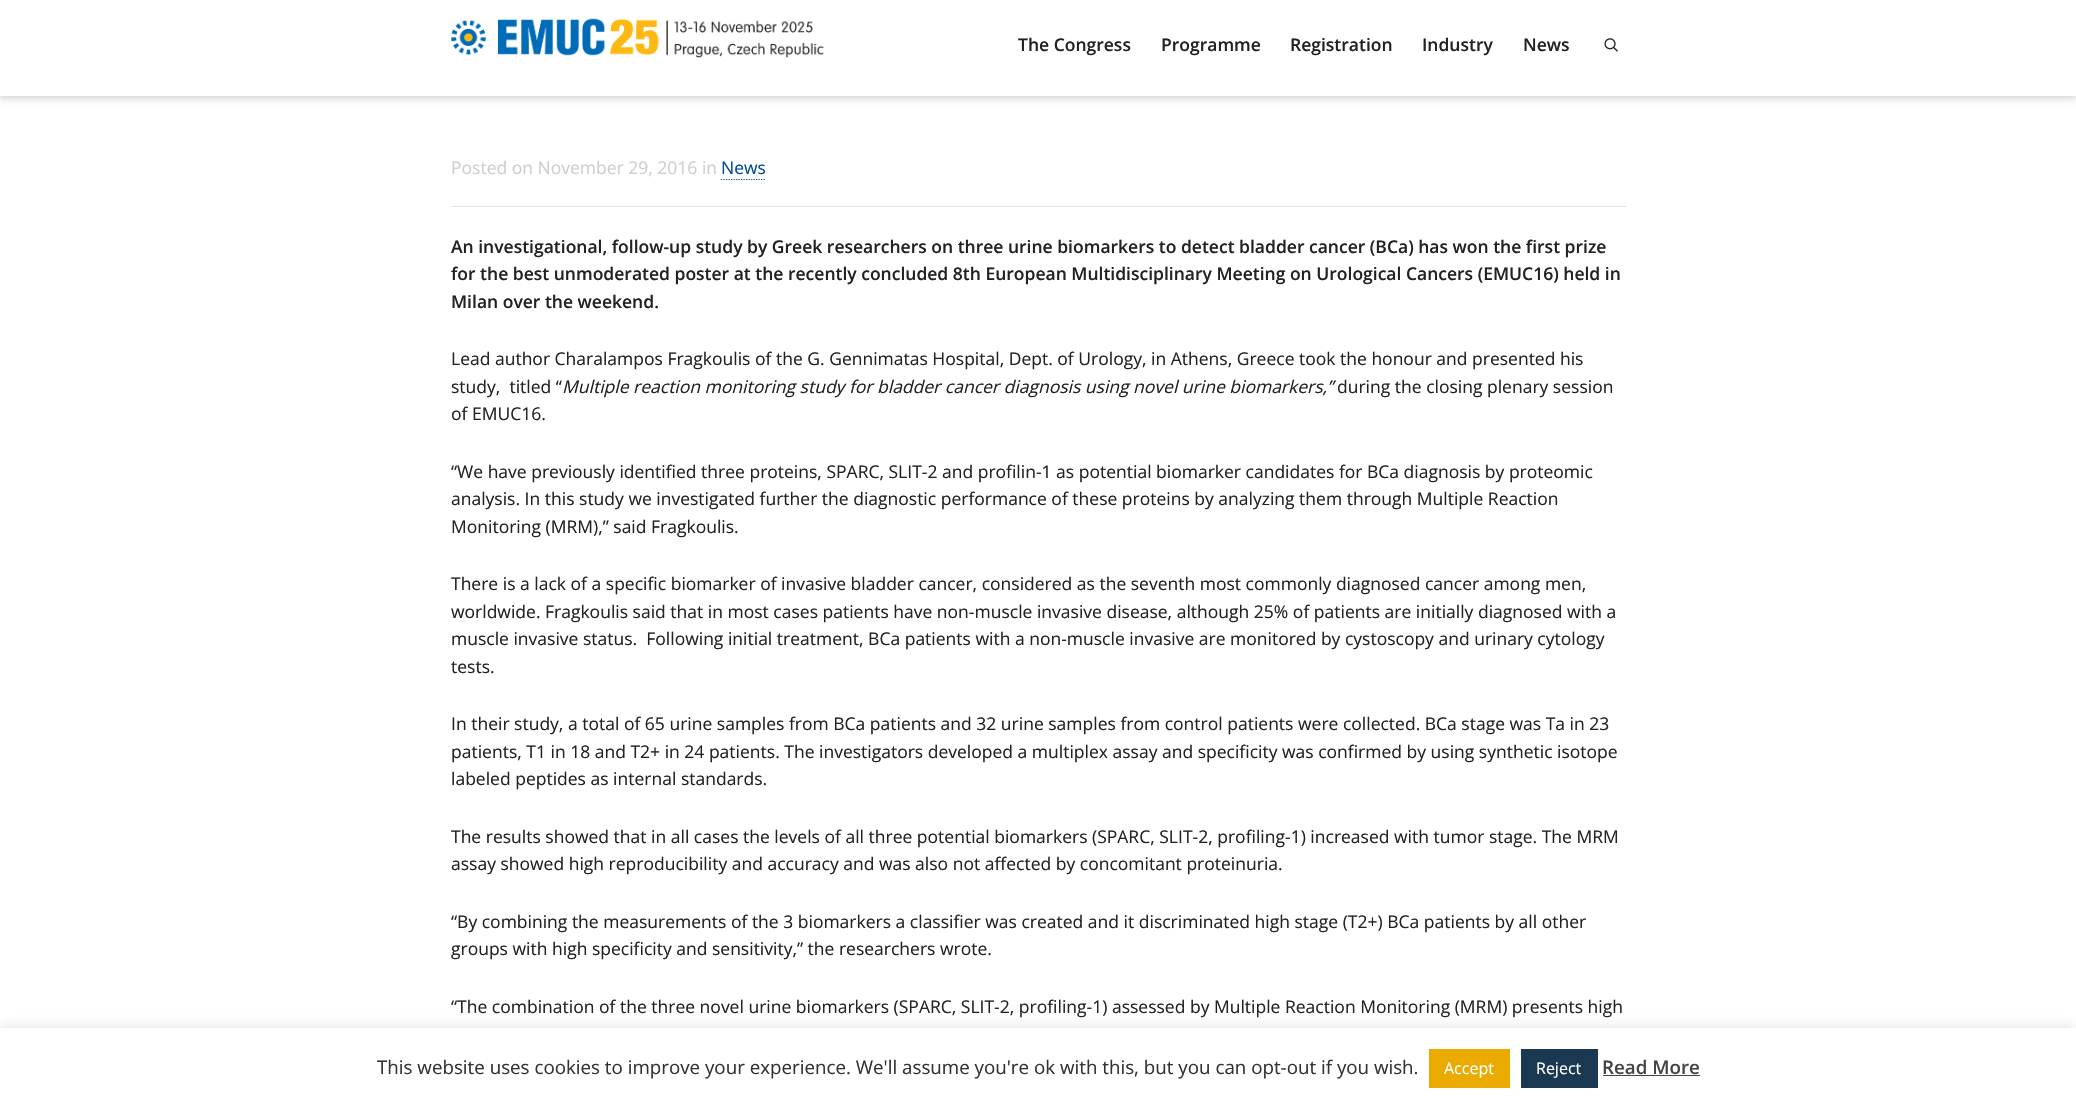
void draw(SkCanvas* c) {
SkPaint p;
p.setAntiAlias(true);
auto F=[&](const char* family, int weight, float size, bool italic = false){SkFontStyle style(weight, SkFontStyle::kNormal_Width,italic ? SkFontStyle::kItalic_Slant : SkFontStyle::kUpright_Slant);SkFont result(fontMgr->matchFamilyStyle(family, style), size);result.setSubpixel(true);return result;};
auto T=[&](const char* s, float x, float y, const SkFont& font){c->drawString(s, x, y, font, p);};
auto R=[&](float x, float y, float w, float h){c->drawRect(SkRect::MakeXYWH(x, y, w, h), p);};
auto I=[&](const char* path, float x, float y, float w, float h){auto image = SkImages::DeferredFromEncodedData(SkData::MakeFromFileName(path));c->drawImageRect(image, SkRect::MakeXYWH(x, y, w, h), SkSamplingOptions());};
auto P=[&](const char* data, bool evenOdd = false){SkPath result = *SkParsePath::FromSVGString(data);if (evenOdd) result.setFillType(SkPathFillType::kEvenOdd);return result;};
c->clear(0xffffffff);
p.setColor(0x1a000000);
p.setMaskFilter(SkMaskFilter::MakeBlur(kNormal_SkBlurStyle, 3));
c->drawRect(SkRect::MakeXYWH(0,-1,2076,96),p);
p.setMaskFilter(nullptr);
p.setMaskFilter(SkMaskFilter::MakeBlur(kNormal_SkBlurStyle, 3));
c->drawRect(SkRect::MakeXYWH(0,4,2076,96),p);
p.setMaskFilter(nullptr);
p.setColor(0xffffffff);
R(0,0,2076,96);
I("1.png",451,18,373,40);
auto f1 = F("Open Sans",600,17.5);
p.setColor(0xff222222);
T("The Congress",1018,51,f1);
T("Programme",1161,51,f1);
T("Registration",1290,51,f1);
T("Industry",1422,51,f1);
T("News",1523,51,f1);
I("2.png",1604,38,14,14);
p.setColor(0xffe4e4e4);
R(451,206,1175,1);
auto f2 = F("Open Sans",400,17.5);
p.setColor(0xffcecece);
T("Posted on November 29, 2016 in",451,174,f2);
p.setColor(0xff004c97);
T("News",721,174,f2);
p.setStroke(true);
p.setStrokeWidth(1.2);
p.setPathEffect(SkDashPathEffect::Make({{1.25f,1.25f}}, 0));
c->drawPath(P("M721 179.5h45"),p);
p.setPathEffect(nullptr);
p.setStroke(false);
p.setColor(0xff222222);
T("An investigational, follow-up study by Greek researchers on three urine biomarkers to detect bladder cancer (BCa) has won the first prize",451,253,f1);
T("for the best unmoderated poster at the recently concluded 8th European Multidisciplinary Meeting on Urological Cancers (EMUC16) held in",451,280,f1);
T("Milan over the weekend.",451,308,f1);
T("Lead author Charalampos Fragkoulis of the G. Gennimatas Hospital, Dept. of Urology, in Athens, Greece took the honour and presented his",451,365,f2);
T("study,  titled “",451,393,f2);
auto f3 = F("Open Sans",400,17.5,true);
T("Multiple reaction monitoring study for bladder cancer diagnosis using novel urine biomarkers,”",562,393,f3);
T("during the closing plenary session",1337,393,f2);
T("of EMUC16.",451,420,f2);
T("“We have previously identified three proteins, SPARC, SLIT-2 and profilin-1 as potential biomarker candidates for BCa diagnosis by proteomic",451,478,f2);
T("analysis. In this study we investigated further the diagnostic performance of these proteins by analyzing them through Multiple Reaction",451,505,f2);
T("Monitoring (MRM),” said Fragkoulis.",451,533,f2);
T("There is a lack of a specific biomarker of invasive bladder cancer, considered as the seventh most commonly diagnosed cancer among men,",451,590,f2);
T("worldwide. Fragkoulis said that in most cases patients have non-muscle invasive disease, although 25% of patients are initially diagnosed with a",451,618,f2);
T("muscle invasive status.  Following initial treatment, BCa patients with a non-muscle invasive are monitored by cystoscopy and urinary cytology",451,645,f2);
T("tests.",451,673,f2);
T("In their study, a total of 65 urine samples from BCa patients and 32 urine samples from control patients were collected. BCa stage was Ta in 23",451,730,f2);
T("patients, T1 in 18 and T2+ in 24 patients. The investigators developed a multiplex assay and specificity was confirmed by using synthetic isotope",451,758,f2);
T("labeled peptides as internal standards.",451,785,f2);
T("The results showed that in all cases the levels of all three potential biomarkers (SPARC, SLIT-2, profiling-1) increased with tumor stage. The MRM",451,843,f2);
T("assay showed high reproducibility and accuracy and was also not affected by concomitant proteinuria.",451,870,f2);
T("“By combining the measurements of the 3 biomarkers a classifier was created and it discriminated high stage (T2+) BCa patients by all other",451,928,f2);
T("groups with high specificity and sensitivity,” the researchers wrote.",451,955,f2);
T("“The combination of the three novel urine biomarkers (SPARC, SLIT-2, profiling-1) assessed by Multiple Reaction Monitoring (MRM) presents high",451,1013,f2);
p.setColor(0x4dacabab);
p.setMaskFilter(SkMaskFilter::MakeBlur(kNormal_SkBlurStyle, 6));
c->drawRect(SkRect::MakeXYWH(0,1026,2076,75),p);
p.setMaskFilter(nullptr);
p.setColor(0xffffffff);
R(0,1028,2076,74);
auto f4 = F("Open Sans",400,18.75);
p.setColor(0xff333333);
T("This website uses cookies to improve your experience. We'll assume you're ok with this, but you can opt-out if you wish.",377,1074,f4);
p.setColor(0xffeaaa00);
R(1429,1049,81,39);
auto f5 = F("Open Sans",400,16);
p.setColor(0xffffffff);
T("Accept",1444,1074,f5);
p.setColor(0xff1a3851);
R(1521,1049,77,39);
p.setColor(0xffffffff);
T("Reject",1536,1074,f5);
auto f6 = F("Open Sans",600,18.75);
p.setColor(0xff444444);
T("Read More",1602,1074,f6);
R(1603,1075,97,1);
}
